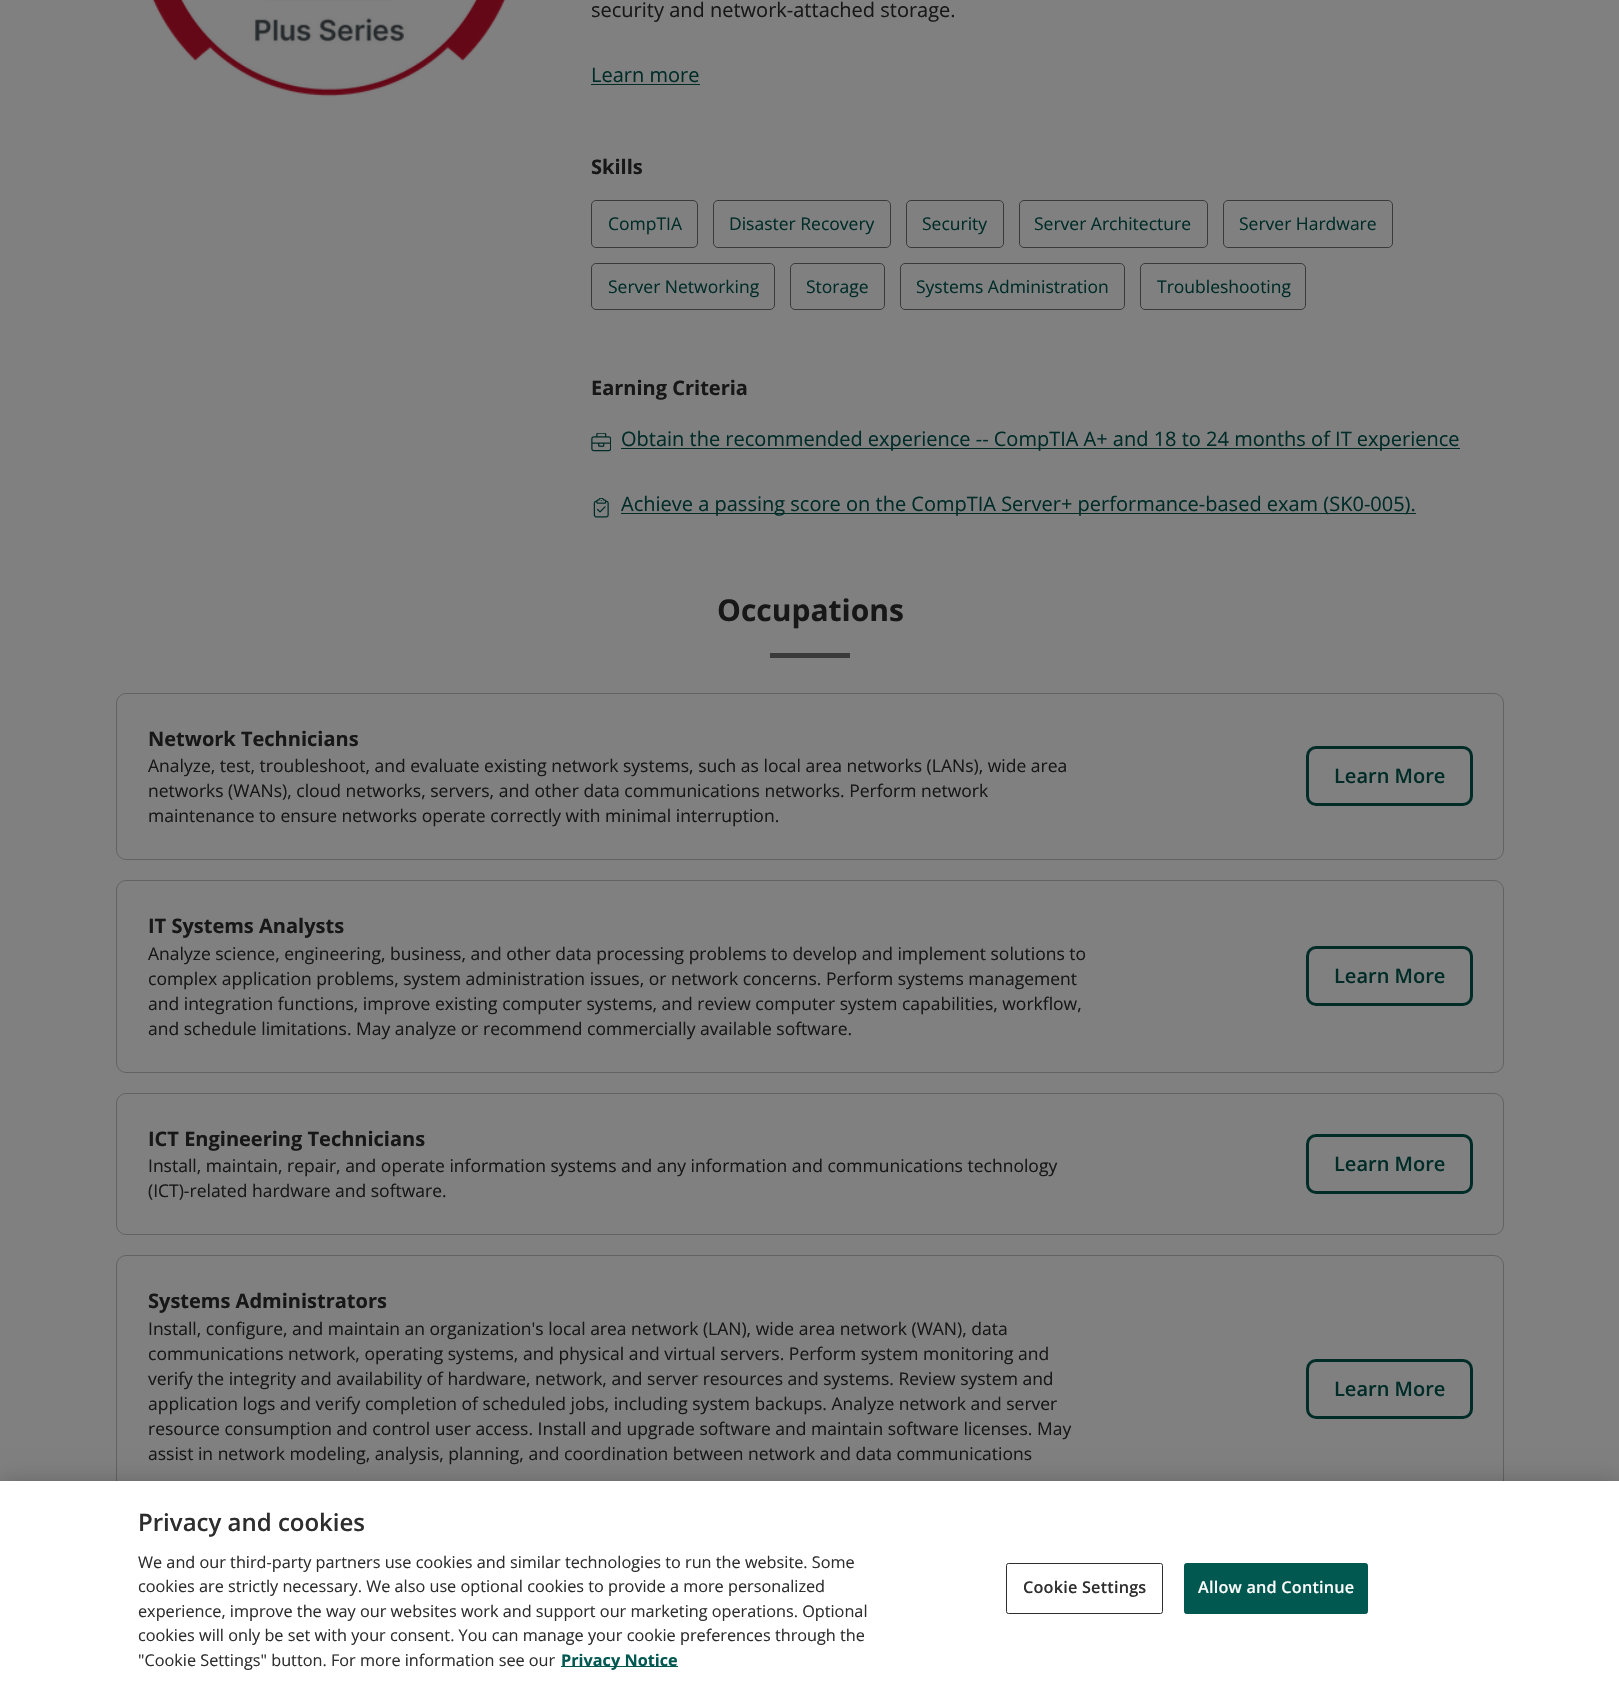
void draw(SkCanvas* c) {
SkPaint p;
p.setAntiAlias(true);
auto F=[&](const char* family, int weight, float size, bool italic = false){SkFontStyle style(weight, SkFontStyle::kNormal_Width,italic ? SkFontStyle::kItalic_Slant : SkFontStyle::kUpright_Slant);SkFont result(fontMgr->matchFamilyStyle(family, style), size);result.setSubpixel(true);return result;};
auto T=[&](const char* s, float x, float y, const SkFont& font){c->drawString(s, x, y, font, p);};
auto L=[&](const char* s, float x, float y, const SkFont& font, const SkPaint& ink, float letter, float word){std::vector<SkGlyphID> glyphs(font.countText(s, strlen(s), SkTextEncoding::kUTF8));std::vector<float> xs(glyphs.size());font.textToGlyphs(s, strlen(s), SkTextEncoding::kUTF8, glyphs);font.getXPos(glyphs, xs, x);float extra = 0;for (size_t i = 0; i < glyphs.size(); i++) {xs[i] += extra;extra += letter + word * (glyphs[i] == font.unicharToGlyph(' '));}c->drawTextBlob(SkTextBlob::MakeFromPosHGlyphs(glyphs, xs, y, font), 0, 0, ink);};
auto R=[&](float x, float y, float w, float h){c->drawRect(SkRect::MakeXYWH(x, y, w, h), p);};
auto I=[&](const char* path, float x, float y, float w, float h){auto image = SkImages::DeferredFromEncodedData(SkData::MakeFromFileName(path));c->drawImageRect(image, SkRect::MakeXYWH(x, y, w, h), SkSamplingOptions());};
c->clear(0xff808080);
I("1.png",152,0,354,97);
auto f1 = F("Open Sans",400,20);
p.setColor(0xff171717);
T("security and network-attached storage.",591,17,f1);
p.setColor(0xff002c28);
T("Learn more",591,82,f1);
R(591,84,109,1);
auto f2 = F("Open Sans",700,20);
p.setColor(0xff171717);
T("Skills",591,174,f2);
p.setStroke(true);
p.setStrokeWidth(1);
p.setColor(0xff3a3a3a);
c->drawRoundRect(SkRect::MakeXYWH(591.5,200.5,106,47),4.5,4.5,p);
auto f3 = F("Open Sans",400,17.5);
p.setStroke(false);
p.setColor(0xff002c28);
T("CompTIA",608,230,f3);
p.setStroke(true);
p.setColor(0xff3a3a3a);
c->drawRoundRect(SkRect::MakeXYWH(713.5,200.5,177,47),4.5,4.5,p);
p.setStroke(false);
p.setColor(0xff002c28);
T("Disaster Recovery",729,230,f3);
p.setStroke(true);
p.setColor(0xff3a3a3a);
c->drawRoundRect(SkRect::MakeXYWH(906.5,200.5,97,47),4.5,4.5,p);
p.setStroke(false);
p.setColor(0xff002c28);
T("Security",922,230,f3);
p.setStroke(true);
p.setColor(0xff3a3a3a);
c->drawRoundRect(SkRect::MakeXYWH(1019.5,200.5,188,47),4.5,4.5,p);
p.setStroke(false);
p.setColor(0xff002c28);
T("Server Architecture",1034,230,f3);
p.setStroke(true);
p.setColor(0xff3a3a3a);
c->drawRoundRect(SkRect::MakeXYWH(1223.5,200.5,169,47),4.5,4.5,p);
p.setStroke(false);
p.setColor(0xff002c28);
T("Server Hardware",1239,230,f3);
p.setStroke(true);
p.setColor(0xff3a3a3a);
c->drawRoundRect(SkRect::MakeXYWH(591.5,263.5,183,46),4.5,4.5,p);
p.setStroke(false);
p.setColor(0xff002c28);
T("Server Networking",608,293,f3);
p.setStroke(true);
p.setColor(0xff3a3a3a);
c->drawRoundRect(SkRect::MakeXYWH(790.5,263.5,94,46),4.5,4.5,p);
p.setStroke(false);
p.setColor(0xff002c28);
T("Storage",806,293,f3);
p.setStroke(true);
p.setColor(0xff3a3a3a);
c->drawRoundRect(SkRect::MakeXYWH(900.5,263.5,224,46),4.5,4.5,p);
p.setStroke(false);
p.setColor(0xff002c28);
T("Systems Administration",916,293,f3);
p.setStroke(true);
p.setColor(0xff3a3a3a);
c->drawRoundRect(SkRect::MakeXYWH(1140.5,263.5,165,46),4.5,4.5,p);
p.setStroke(false);
p.setColor(0xff002c28);
T("Troubleshooting",1157,293,f3);
p.setColor(0xff171717);
T("Earning Criteria",591,395,f2);
I("2.png",591,433,20,19);
p.setColor(0xff002c28);
R(621,448,839,1);
T("Obtain the recommended experience -- CompTIA A+ and 18 to 24 months of IT experience",621,446,f1);
I("3.png",593,498,16,20);
R(621,513,795,1);
T("Achieve a passing score on the CompTIA Server+ performance-based exam (SK0-005).",621,511,f1);
auto f4 = F("Open Sans",700,30);
p.setColor(0xff171717);
T("Occupations",717,621,f4);
p.setColor(0xff3a3a3b);
R(770,653,80,5);
p.setStroke(true);
p.setColor(0xff626262);
c->drawRoundRect(SkRect::MakeXYWH(116.5,693.5,1387,166),9.5,9.5,p);
p.setStroke(false);
p.setColor(0xff171717);
T("Network Technicians",148,746,f2);
T("Analyze, test, troubleshoot, and evaluate existing network systems, such as local area networks (LANs), wide area",148,772,f3);
T("networks (WANs), cloud networks, servers, and other data communications networks. Perform network",148,797,f3);
T("maintenance to ensure networks operate correctly with minimal interruption.",148,822,f3);
p.setStroke(true);
p.setStrokeWidth(3);
p.setColor(0xff002c28);
c->drawRoundRect(SkRect::MakeXYWH(1307.5,747.5,164,57),8.5,8.5,p);
auto f5 = F("Open Sans",600,20);
p.setStroke(false);
T("Learn More",1334,783,f5);
p.setStroke(true);
p.setStrokeWidth(1);
p.setColor(0xff626262);
c->drawRoundRect(SkRect::MakeXYWH(116.5,880.5,1387,192),9.5,9.5,p);
p.setStroke(false);
p.setColor(0xff171717);
T("IT Systems Analysts",148,933,f2);
T("Analyze science, engineering, business, and other data processing problems to develop and implement solutions to",148,960,f3);
T("complex application problems, system administration issues, or network concerns. Perform systems management",148,985,f3);
T("and integration functions, improve existing computer systems, and review computer system capabilities, workflow,",148,1010,f3);
T("and schedule limitations. May analyze or recommend commercially available software.",148,1035,f3);
p.setStroke(true);
p.setStrokeWidth(3);
p.setColor(0xff002c28);
c->drawRoundRect(SkRect::MakeXYWH(1307.5,947.5,164,57),8.5,8.5,p);
p.setStroke(false);
T("Learn More",1334,983,f5);
p.setStroke(true);
p.setStrokeWidth(1);
p.setColor(0xff626262);
c->drawRoundRect(SkRect::MakeXYWH(116.5,1093.5,1387,141),9.5,9.5,p);
p.setStroke(false);
p.setColor(0xff171717);
T("ICT Engineering Technicians",148,1146,f2);
T("Install, maintain, repair, and operate information systems and any information and communications technology",148,1172,f3);
T("(ICT)-related hardware and software.",148,1197,f3);
p.setStroke(true);
p.setStrokeWidth(3);
p.setColor(0xff002c28);
c->drawRoundRect(SkRect::MakeXYWH(1307.5,1135.5,164,57),8.5,8.5,p);
p.setStroke(false);
T("Learn More",1334,1171,f5);
p.setStroke(true);
p.setStrokeWidth(1);
p.setColor(0xff626262);
c->drawRoundRect(SkRect::MakeXYWH(116.5,1255.5,1387,267),9.5,9.5,p);
p.setStroke(false);
p.setColor(0xff171717);
T("Systems Administrators",148,1308,f2);
T("Install, configure, and maintain an organization's local area network (LAN), wide area network (WAN), data",148,1335,f3);
T("communications network, operating systems, and physical and virtual servers. Perform system monitoring and",148,1360,f3);
T("verify the integrity and availability of hardware, network, and server resources and systems. Review system and",148,1385,f3);
T("application logs and verify completion of scheduled jobs, including system backups. Analyze network and server",148,1410,f3);
T("resource consumption and control user access. Install and upgrade software and maintain software licenses. May",148,1435,f3);
T("assist in network modeling, analysis, planning, and coordination between network and data communications",148,1460,f3);
p.setStroke(true);
p.setStrokeWidth(3);
p.setColor(0xff002c28);
c->drawRoundRect(SkRect::MakeXYWH(1307.5,1360.5,164,57),8.5,8.5,p);
p.setStroke(false);
T("Learn More",1334,1396,f5);
p.setColor(0x33000000);
p.setMaskFilter(SkMaskFilter::MakeBlur(kNormal_SkBlurStyle, 11));
c->drawRect(SkRect::MakeXYWH(0,1481,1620,204),p);
p.setMaskFilter(nullptr);
p.setColor(0xffffffff);
R(0,1481,1619,204);
auto f6 = F("Open Sans",600,24);
p.setColor(0xff2e2e2e);
T("Privacy and cookies",138,1531,f6);
auto f7 = F("Open Sans",400,16.25);
T("We and our third-party partners use cookies and similar technologies to run the website. Some",138,1568,f7);
T("cookies are strictly necessary. We also use optional cookies to provide a more personalized",138,1592,f7);
T("experience, improve the way our websites work and support our marketing operations. Optional",138,1617,f7);
T("cookies will only be set with your consent. You can manage your cookie preferences through the",138,1641,f7);
T("\"Cookie Settings\" button. For more information see our",138,1666,f7);
p.setColor(0xff005850);
R(561,1666,117,1);
auto f8 = F("Open Sans",700,16.25);
T("Privacy Notice",561,1666,f8);
p.setStroke(true);
p.setStrokeWidth(1);
p.setColor(0xff2e2e2e);
c->drawRoundRect(SkRect::MakeXYWH(1006.5,1563.5,156,50),2,2,p);
auto f9 = F("Open Sans",600,16.25);
p.setStroke(false);
L("Cookie Settings",1023,1593,f9,p,.2,0);
p.setColor(0xff005850);
c->drawRoundRect(SkRect::MakeXYWH(1184.5,1563.5,183,50),2,2,p);
p.setStroke(true);
c->drawRoundRect(SkRect::MakeXYWH(1184.5,1563.5,183,50),2,2,p);
p.setStroke(false);
p.setColor(0xfffefefe);
L("Allow and Continue",1198,1593,f9,p,.2,0);
}
